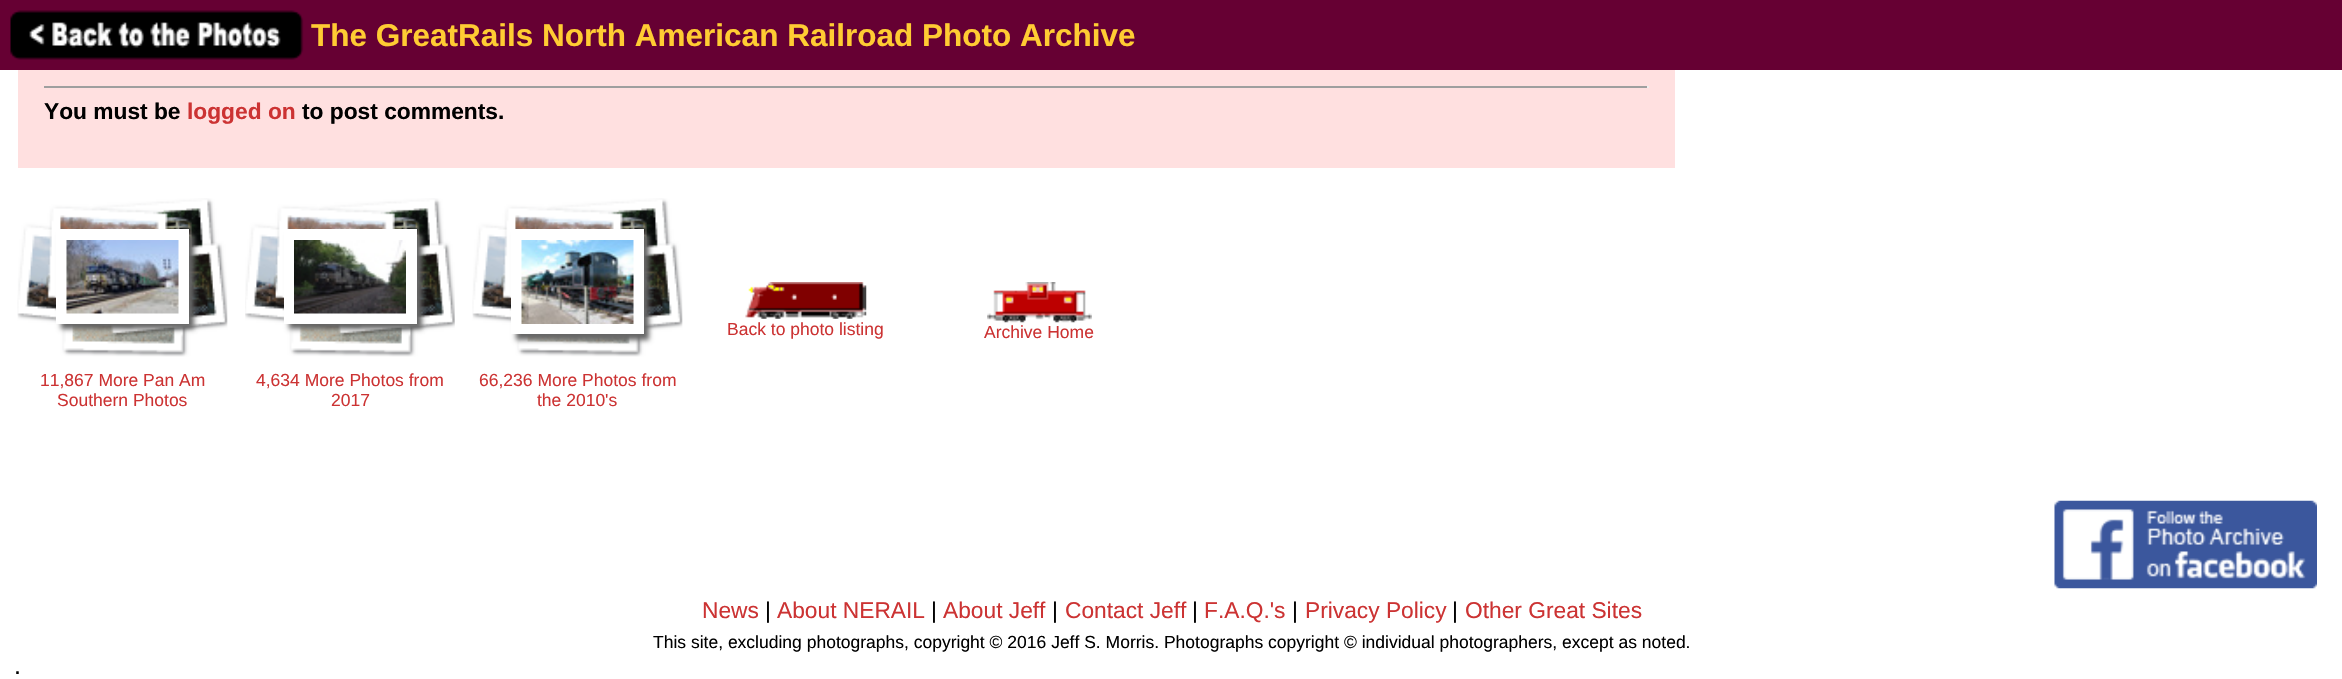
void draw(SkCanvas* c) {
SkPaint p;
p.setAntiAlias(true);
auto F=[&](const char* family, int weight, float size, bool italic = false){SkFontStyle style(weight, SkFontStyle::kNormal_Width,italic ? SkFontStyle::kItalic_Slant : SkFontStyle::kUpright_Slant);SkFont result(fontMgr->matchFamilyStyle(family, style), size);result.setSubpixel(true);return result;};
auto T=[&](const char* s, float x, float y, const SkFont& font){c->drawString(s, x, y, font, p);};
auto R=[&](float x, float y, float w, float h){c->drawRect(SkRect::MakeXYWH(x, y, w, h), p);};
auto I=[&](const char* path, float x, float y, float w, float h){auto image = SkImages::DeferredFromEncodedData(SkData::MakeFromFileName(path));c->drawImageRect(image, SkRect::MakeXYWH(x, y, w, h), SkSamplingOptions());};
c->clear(0xffffffff);
p.setColor(0xff660033);
R(0,0,2342,70);
I("1.png",10,10,294,50);
auto f1 = F("Liberation Sans",700,31.5);
p.setColor(0xffffcc33);
T("The GreatRails North American Railroad Photo Archive",311,46,f1);
p.setColor(0xffffe0e0);
R(18,70,1657,98);
p.setColor(0xff9f9f9f);
R(44,86,1605,2);
p.setColor(0xffeeeeee);
R(1647,86,2,2);
auto f2 = F("Liberation Sans",700,22.75);
p.setColor(0xff000000);
T("You must be",44,119,f2);
p.setColor(0xffcc3333);
T("logged on",187,119,f2);
p.setColor(0xff000000);
T("to post comments.",302,119,f2);
I("2.png",745,282,122,37);
auto f3 = F("Liberation Sans",400,17.5);
p.setColor(0xffcc3333);
T("Back to photo listing",727,335,f3);
I("3.png",987,282,105,41);
T("Archive Home",984,338,f3);
I("4.png",17,198,211,159);
p.setColor(0xff666666);
p.setMaskFilter(SkMaskFilter::MakeBlur(kNormal_SkBlurStyle, 2.5));
c->drawRect(SkRect::MakeXYWH(61,235,133,94),p);
p.setMaskFilter(nullptr);
p.setColor(0xffffffff);
R(56,229,133,95);
I("5.png",66,240,113,74);
p.setColor(0xffcc3333);
T("11,867 More Pan Am",40,386,f3);
T("Southern Photos",57,406,f3);
I("6.png",245,198,210,159);
p.setColor(0xff666666);
p.setMaskFilter(SkMaskFilter::MakeBlur(kNormal_SkBlurStyle, 2.5));
c->drawRect(SkRect::MakeXYWH(289,235,133,94),p);
p.setMaskFilter(nullptr);
p.setColor(0xffffffff);
R(284,229,133,95);
I("7.png",294,240,112,74);
p.setColor(0xffcc3333);
T("4,634 More Photos from",256,386,f3);
T("2017",331,406,f3);
I("8.png",472,198,211,159);
p.setColor(0xff666666);
p.setMaskFilter(SkMaskFilter::MakeBlur(kNormal_SkBlurStyle, 2.5));
c->drawRect(SkRect::MakeXYWH(516,235,133,105),p);
p.setMaskFilter(nullptr);
p.setColor(0xffffffff);
R(511,229,133,105);
I("9.png",521,240,113,84);
p.setColor(0xffcc3333);
T("66,236 More Photos from",479,386,f3);
T("the 2010's",537,406,f3);
I("10.png",2054,500,263,89);
auto f4 = F("Liberation Sans",400,22.75);
T("News",702,618,f4);
p.setColor(0xff000000);
T("|",765,618,f4);
p.setColor(0xffcc3333);
T("About NERAIL",777,618,f4);
p.setColor(0xff000000);
T("|",931,618,f4);
p.setColor(0xffcc3333);
T("About Jeff",943,618,f4);
p.setColor(0xff000000);
T("|",1052,618,f4);
p.setColor(0xffcc3333);
T("Contact Jeff",1065,618,f4);
p.setColor(0xff000000);
T("|",1192,618,f4);
p.setColor(0xffcc3333);
T("F.A.Q.'s",1204,618,f4);
p.setColor(0xff000000);
T("|",1292,618,f4);
p.setColor(0xffcc3333);
T("Privacy Policy",1305,618,f4);
p.setColor(0xff000000);
T("|",1452,618,f4);
p.setColor(0xffcc3333);
T("Other Great Sites",1465,618,f4);
p.setColor(0xff000000);
T("This site, excluding photographs, copyright © 2016 Jeff S. Morris. Photographs copyright © individual photographers, except as noted.",653,648,f3);
auto f5 = F("Liberation Sans",400,25);
T(".",14,674,f5);
}
